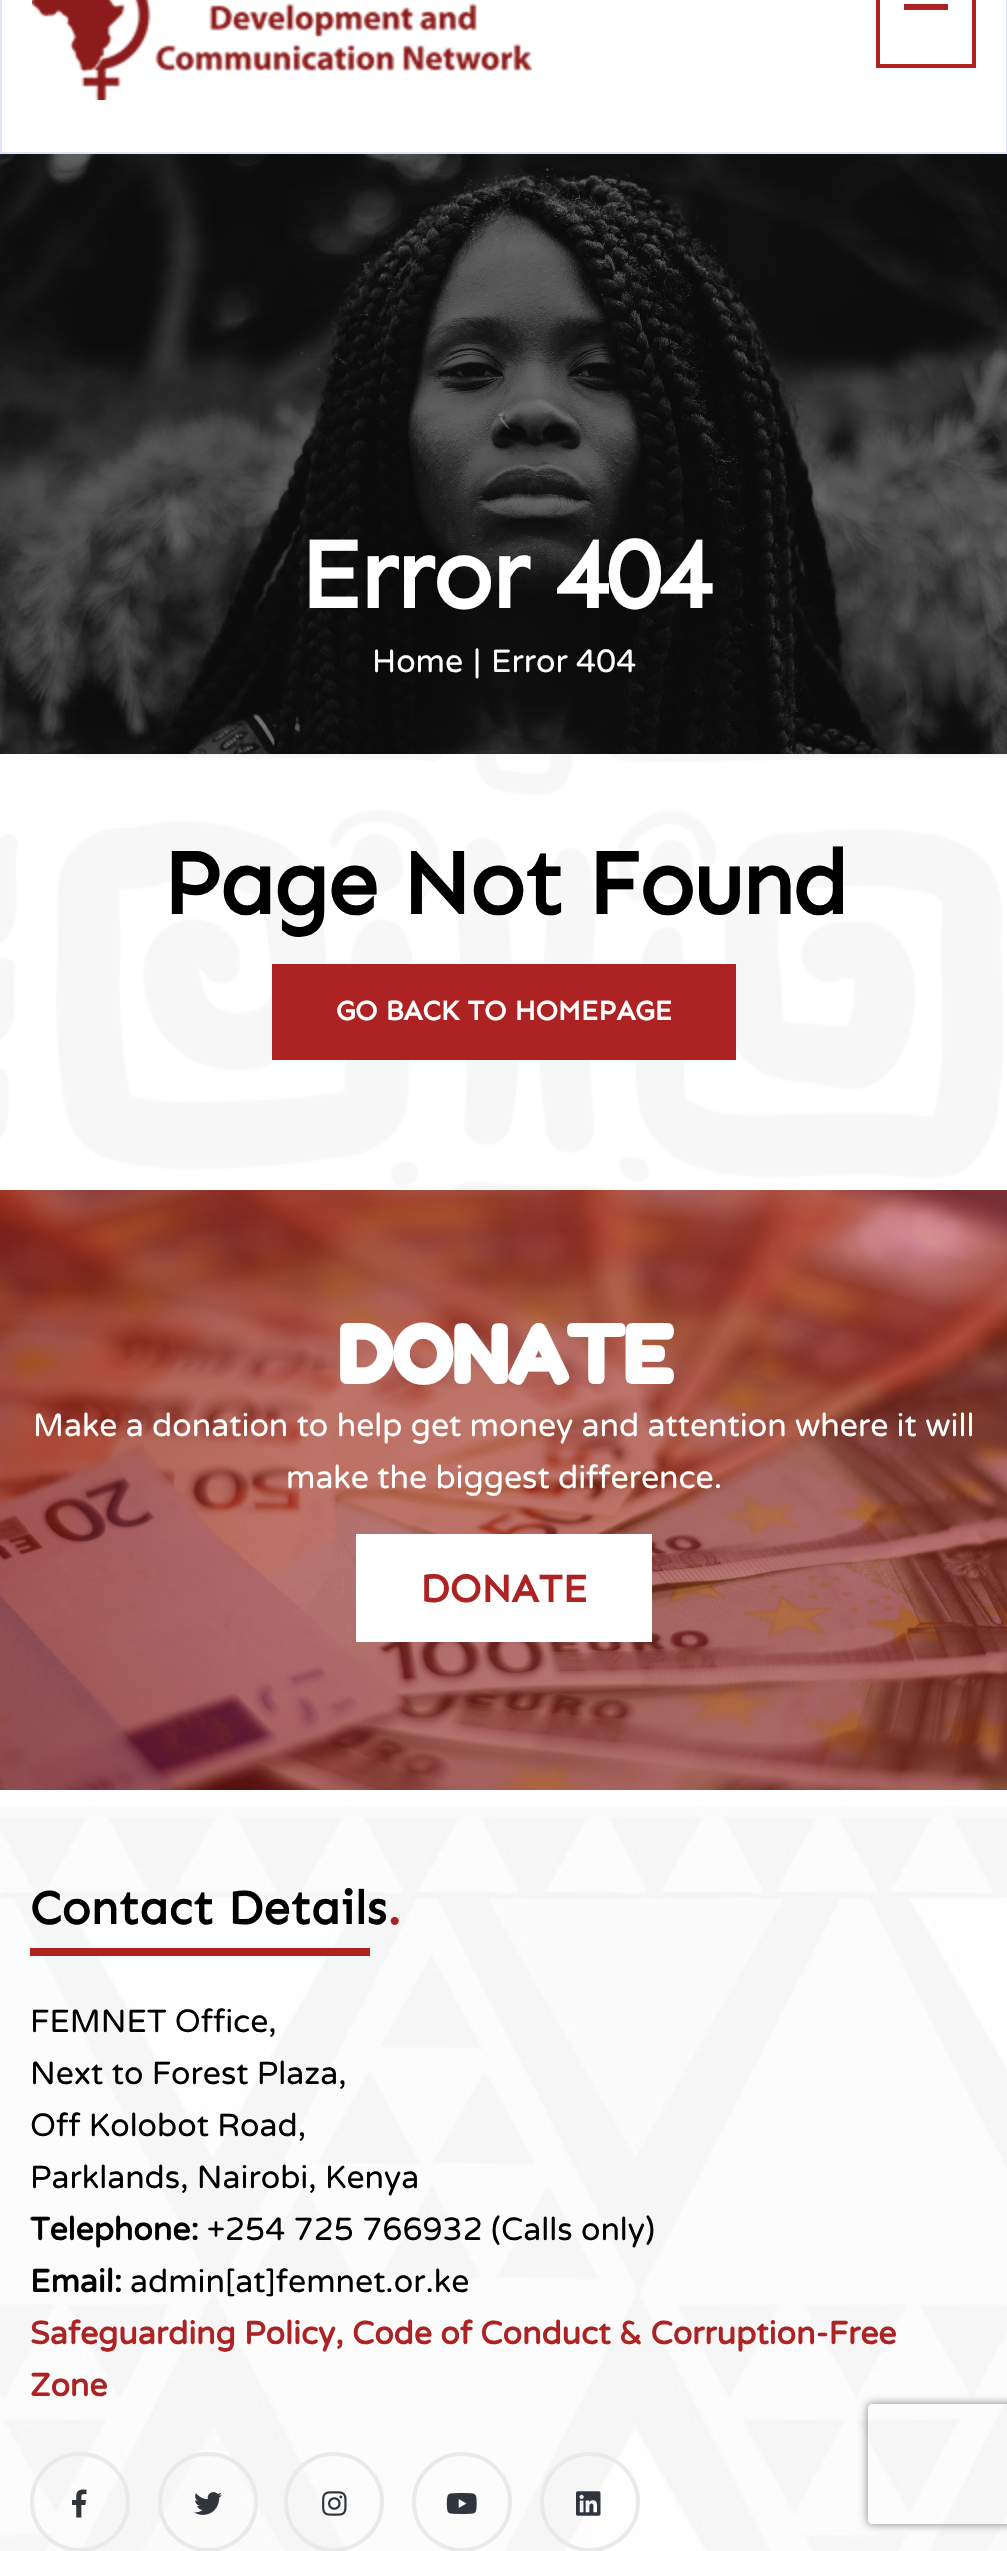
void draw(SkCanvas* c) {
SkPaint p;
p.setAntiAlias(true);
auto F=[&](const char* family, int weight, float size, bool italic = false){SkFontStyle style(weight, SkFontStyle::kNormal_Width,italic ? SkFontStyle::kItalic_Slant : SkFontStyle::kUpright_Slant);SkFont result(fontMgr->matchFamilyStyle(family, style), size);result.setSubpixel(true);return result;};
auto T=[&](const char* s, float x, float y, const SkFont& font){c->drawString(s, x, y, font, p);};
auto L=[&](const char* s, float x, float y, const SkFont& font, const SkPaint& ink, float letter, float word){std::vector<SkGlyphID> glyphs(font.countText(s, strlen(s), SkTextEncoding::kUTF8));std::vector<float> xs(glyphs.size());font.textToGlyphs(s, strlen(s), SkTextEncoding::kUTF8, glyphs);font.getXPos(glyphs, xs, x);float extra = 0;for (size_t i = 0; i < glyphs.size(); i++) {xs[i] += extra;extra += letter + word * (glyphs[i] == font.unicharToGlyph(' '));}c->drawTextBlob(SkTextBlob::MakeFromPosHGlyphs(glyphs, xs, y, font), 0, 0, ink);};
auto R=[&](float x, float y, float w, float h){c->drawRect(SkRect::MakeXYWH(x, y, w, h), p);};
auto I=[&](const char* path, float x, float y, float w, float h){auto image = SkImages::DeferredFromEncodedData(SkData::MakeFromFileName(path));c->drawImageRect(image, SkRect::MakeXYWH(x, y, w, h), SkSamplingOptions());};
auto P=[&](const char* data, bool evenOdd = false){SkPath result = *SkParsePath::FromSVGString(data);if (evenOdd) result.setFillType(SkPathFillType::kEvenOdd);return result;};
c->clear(0xffffffff);
p.setStroke(true);
p.setStrokeWidth(2);
p.setColor(0xffdee7fd);
c->drawRect(SkRect::MakeXYWH(1,-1,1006,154),p);
I("1.png",32,0,500,100);
p.setStrokeWidth(4);
p.setColor(0xffad2222);
c->drawRect(SkRect::MakeXYWH(878,-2,96,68),p);
p.setStroke(false);
R(904,4,44,6);
I("2.png",0,154,1007,600);
auto f1 = F("Sen",700,100);
p.setColor(0xffffffff);
L("Error 404",299,608,f1,p,-2,0);
auto f2 = F("Varela Round",400,32);
T("Home",372,672,f2);
T("|",473,672,f2);
T("Error 404",491,672,f2);
I("3.png",0,754,1007,436);
auto f3 = F("Sen",700,92);
p.setColor(0xff000000);
L("Page Not Found",162,914,f3,p,-2,0);
p.setColor(0xffad2222);
R(272,964,464,96);
auto f4 = F("Sen",700,28);
p.setColor(0xffffffff);
T("GO BACK TO HOMEPAGE",336,1020,f4);
I("4.png",0,1190,1007,600);
auto f5 = F("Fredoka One",700,80);
L("DONATE",337,1384,f5,p,-2,0);
T("Make a donation to help get money and attention where it will",33,1436,f2);
T("make the biggest difference.",286,1488,f2);
R(356,1534,296,108);
auto f6 = F("Sen",700,40);
p.setColor(0xffad2222);
T("DONATE",420,1602,f6);
I("5.png",0,1806,1007,745);
auto f7 = F("Sen",700,48);
p.setColor(0xff000000);
T("Contact Details",30,1924,f7);
p.setColor(0xffad2222);
T(".",387,1924,f7);
R(30,1948,340,8);
p.setColor(0xff000000);
T("FEMNET Office,",30,2032,f2);
T("Next to Forest Plaza,",30,2084,f2);
T("Off Kolobot Road,",30,2136,f2);
T("Parklands, Nairobi, Kenya",30,2188,f2);
auto f8 = F("Varela Round",700,32);
T("Telephone:",30,2240,f8);
T("+254 725 766932 (Calls only)",207,2240,f2);
T("Email:",30,2292,f8);
T("admin[at]femnet.or.ke",130,2292,f2);
p.setColor(0xffad2222);
T("Safeguarding Policy, Code of Conduct & Corruption-Free",30,2344,f8);
T("Zone",30,2396,f8);
p.setStroke(true);
p.setColor(0xffeaeaea);
c->drawCircle(80,2502,48,p);
I("6.png",72,2489,15,29);
c->drawCircle(208,2502,48,p);
I("7.png",194,2492,28,23);
c->drawCircle(334,2502,48,p);
I("8.png",322,2491,25,25);
c->drawCircle(462,2502,48,p);
I("9.png",446,2493,31,21);
c->drawCircle(590,2502,48,p);
I("10.png",576,2491,25,25);
c->save();
c->clipPath(P("M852 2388h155v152h-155zm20 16h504c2 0 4 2 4 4v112c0 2-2 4-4 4h-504c-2 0-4-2-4-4v-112c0-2 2-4 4-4z",true),true);
p.setStroke(false);
p.setColor(0xff808080);
p.setMaskFilter(SkMaskFilter::MakeBlur(kNormal_SkBlurStyle, 5));
c->drawRoundRect(SkRect::MakeXYWH(868,2404,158,120),4,4,p);
p.setMaskFilter(nullptr);
c->restore();
}
